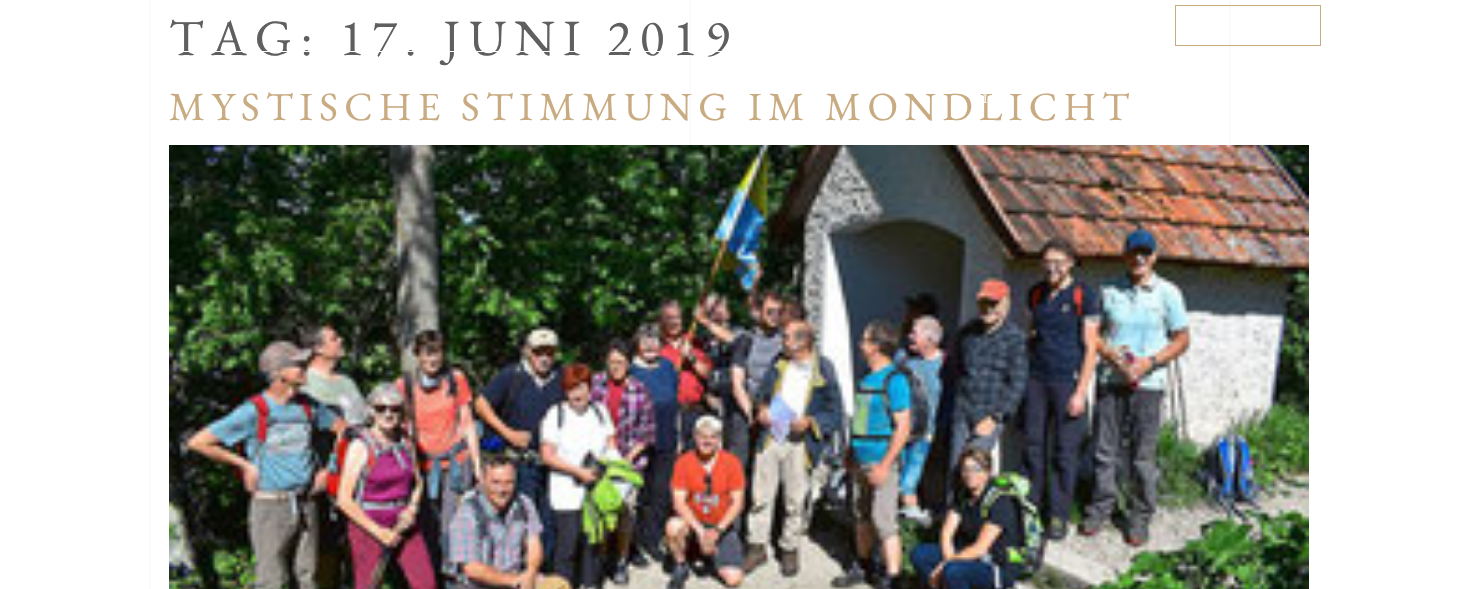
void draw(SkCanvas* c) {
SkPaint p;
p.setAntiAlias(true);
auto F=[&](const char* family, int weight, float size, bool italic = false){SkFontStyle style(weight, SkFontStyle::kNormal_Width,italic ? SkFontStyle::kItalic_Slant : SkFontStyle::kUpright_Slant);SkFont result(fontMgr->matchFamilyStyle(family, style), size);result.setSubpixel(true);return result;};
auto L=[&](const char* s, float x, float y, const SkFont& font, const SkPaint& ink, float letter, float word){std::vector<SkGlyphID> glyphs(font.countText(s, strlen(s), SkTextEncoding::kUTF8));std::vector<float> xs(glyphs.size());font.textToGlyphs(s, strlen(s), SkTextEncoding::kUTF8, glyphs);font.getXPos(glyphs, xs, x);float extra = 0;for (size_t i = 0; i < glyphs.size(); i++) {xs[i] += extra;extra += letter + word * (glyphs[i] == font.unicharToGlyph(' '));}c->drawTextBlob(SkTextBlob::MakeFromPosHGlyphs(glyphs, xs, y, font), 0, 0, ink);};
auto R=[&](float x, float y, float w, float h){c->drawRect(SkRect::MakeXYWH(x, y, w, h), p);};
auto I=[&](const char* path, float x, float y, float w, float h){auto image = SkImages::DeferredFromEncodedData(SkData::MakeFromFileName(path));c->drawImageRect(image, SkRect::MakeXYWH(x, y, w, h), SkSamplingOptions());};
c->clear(0xffffffff);
I("1.png",149,1,1082,588);
auto f1 = F("EB Garamond",400,51);
p.setColor(0xff5f5f5f);
L("TAG: 17. JUNI 2019",169,55,f1,p,8.2,0);
auto f2 = F("EB Garamond",400,40);
p.setColor(0xffc9ab81);
L("MYSTISCHE STIMMUNG IM MONDLICHT",169,120,f2,p,6.4,0);
I("2.png",169,145,1140,444);
p.setColor(0xffffffff);
R(149,51,1082,1);
p.setStroke(true);
p.setStrokeWidth(1);
p.setColor(0xffc9ab81);
c->drawRect(SkRect::MakeXYWH(1175.5,5.5,145,40),p);
auto f3 = F("EB Garamond",400,13);
p.setStroke(false);
p.setColor(0xffffffff);
L("I",983,103,f3,p,3,0);
}
